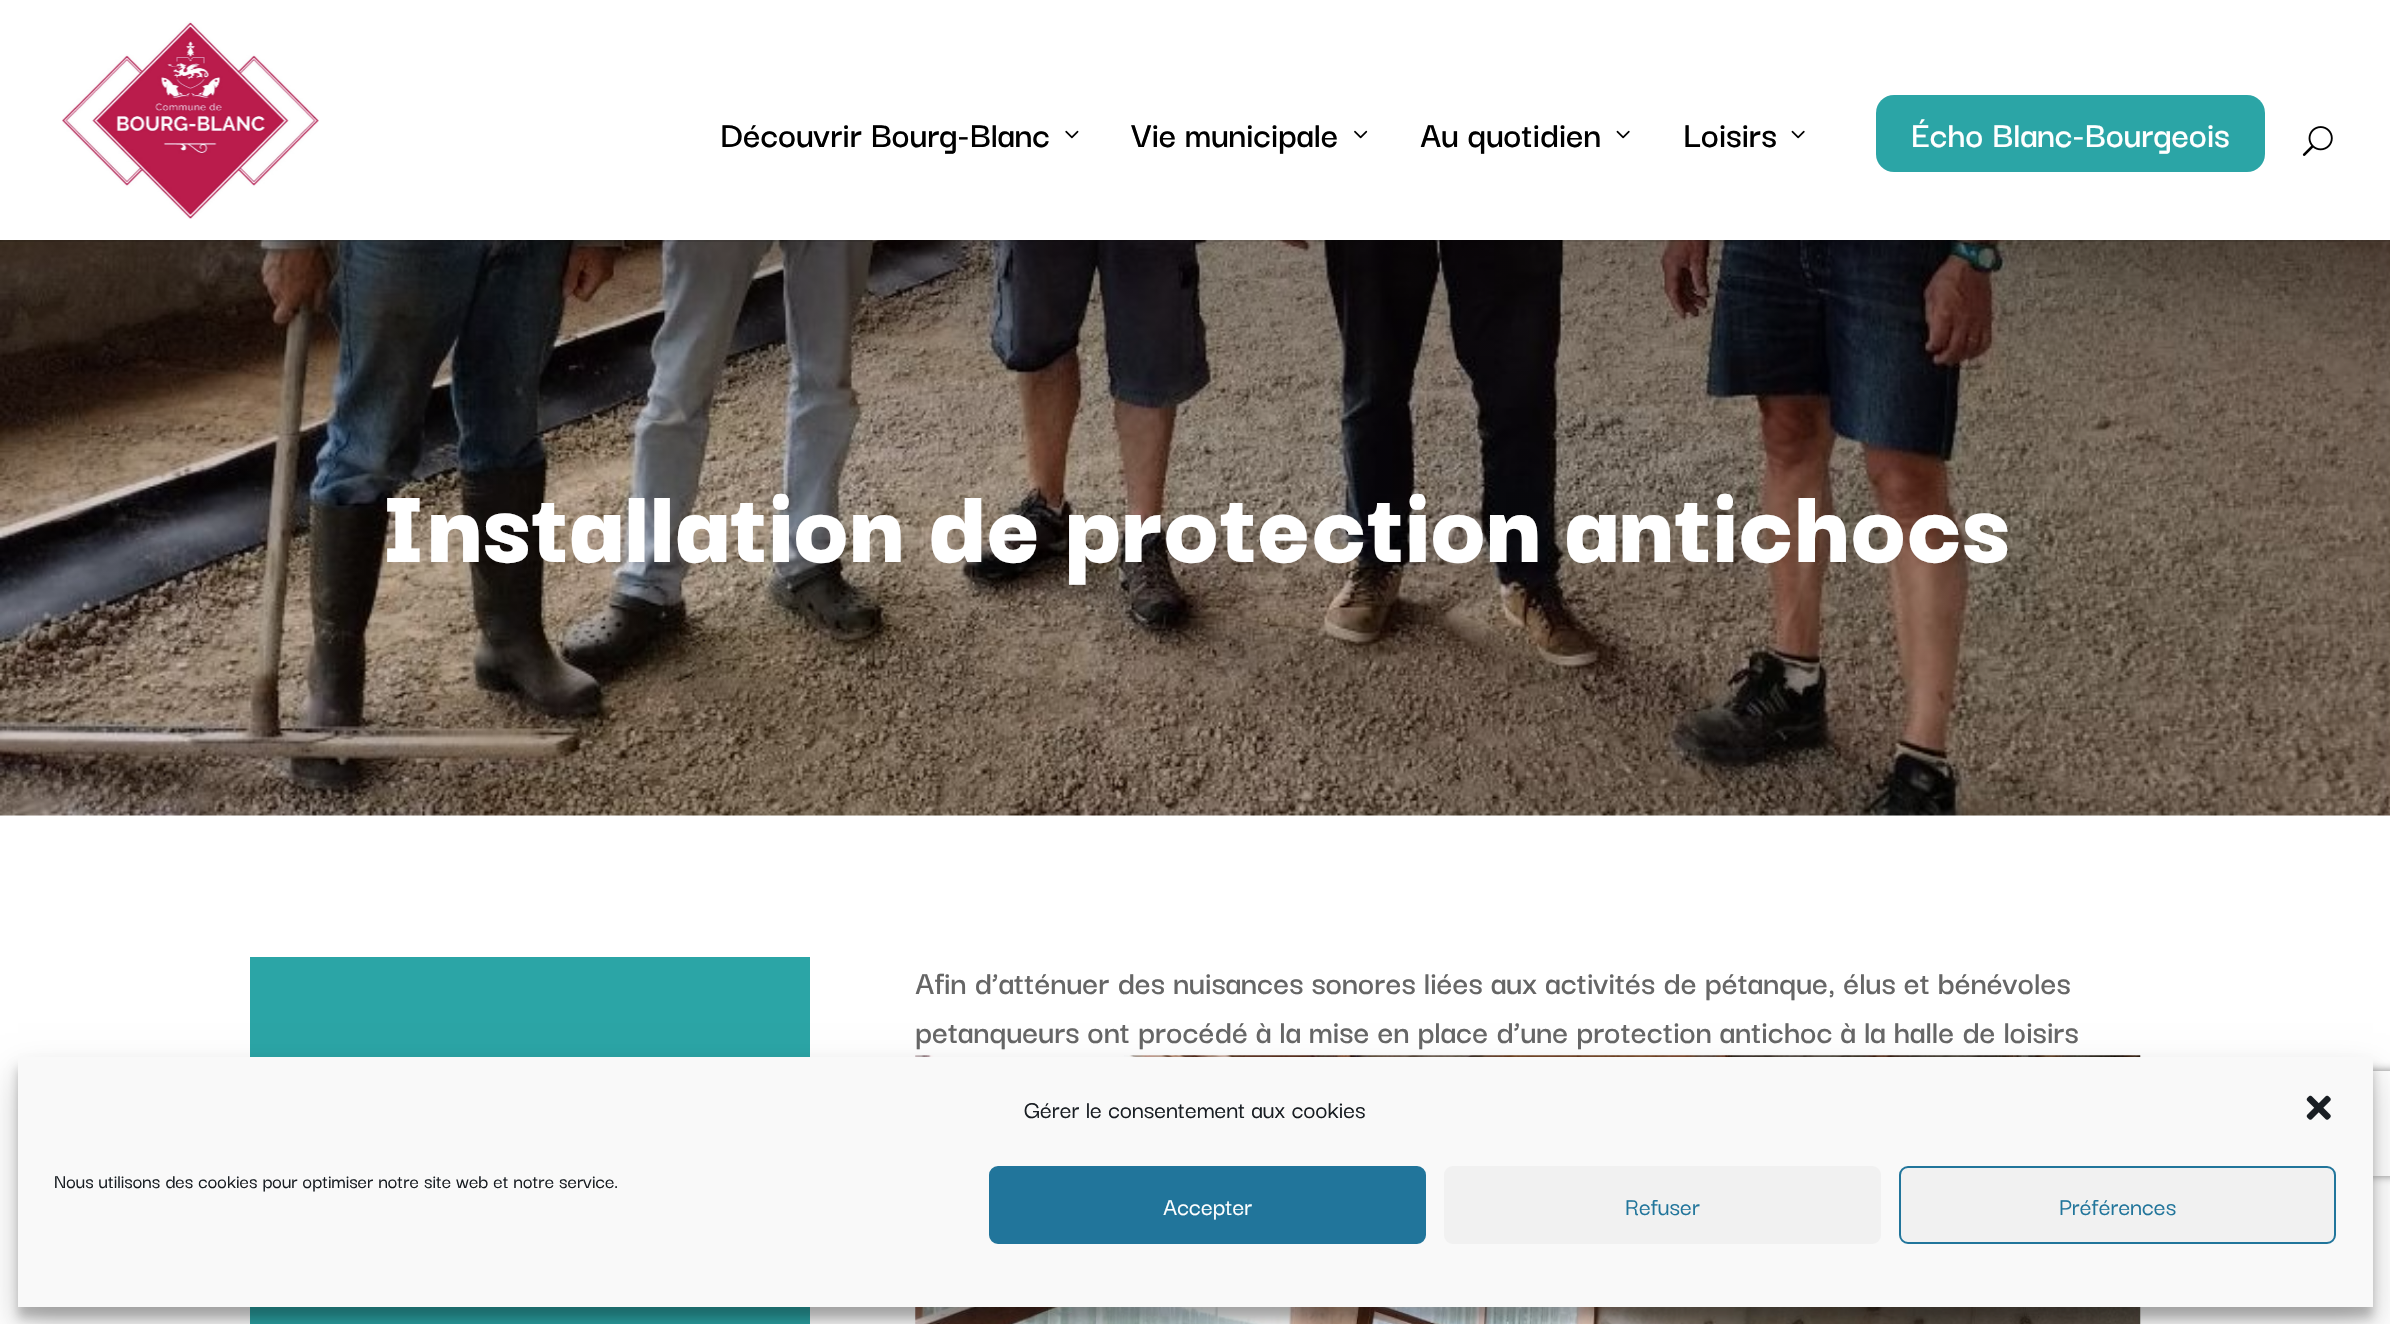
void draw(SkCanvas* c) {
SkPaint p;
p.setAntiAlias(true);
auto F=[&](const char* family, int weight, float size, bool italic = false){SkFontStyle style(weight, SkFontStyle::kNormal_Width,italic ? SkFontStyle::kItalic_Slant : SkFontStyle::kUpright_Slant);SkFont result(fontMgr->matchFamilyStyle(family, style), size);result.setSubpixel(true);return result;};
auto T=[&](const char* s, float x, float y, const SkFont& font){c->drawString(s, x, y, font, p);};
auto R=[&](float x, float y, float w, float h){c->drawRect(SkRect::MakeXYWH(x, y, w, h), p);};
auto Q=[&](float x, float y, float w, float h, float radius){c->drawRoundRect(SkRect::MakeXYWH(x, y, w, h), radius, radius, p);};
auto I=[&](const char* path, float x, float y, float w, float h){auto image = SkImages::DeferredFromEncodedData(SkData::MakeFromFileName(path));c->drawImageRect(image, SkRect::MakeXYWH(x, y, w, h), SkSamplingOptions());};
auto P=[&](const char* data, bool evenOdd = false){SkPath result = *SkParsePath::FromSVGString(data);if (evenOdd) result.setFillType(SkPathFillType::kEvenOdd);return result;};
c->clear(0xffffffff);
I("6.png",0,240,2390,576);
p.setColor(0x1a000000);
c->drawPath(P("M0 240v2h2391v-240h-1v238z"),p);
I("1.png",62,21,257,198);
auto f1 = F("Darker Grotesque",600,38.5);
p.setColor(0xff000000);
T("Découvrir Bourg-Blanc",720,147,f1);
I("2.png",1065,130,14,9);
T("Vie municipale",1131,147,f1);
I("3.png",1354,130,14,9);
T("Au quotidien",1420,147,f1);
I("4.png",1616,130,14,9);
T("Loisirs",1683,147,f1);
I("4.png",1791,130,14,9);
p.setColor(0xff2ba5a6);
Q(1876,95,389,77,18);
p.setColor(0xffffffff);
T("Écho Blanc-Bourgeois",1911,147,f1);
I("5.png",2302,126,31,30);
auto f2 = F("Darker Grotesque",900,113.75);
T("Installation de protection antichocs",380,562,f2);
p.setColor(0xff2ba5a6);
R(250,957,560,367);
auto f3 = F("Darker Grotesque",600,35);
p.setColor(0xff666666);
T("Afin d’atténuer des nuisances sonores liées aux activités de pétanque, élus et bénévoles",915,994,f3);
T("petanqueurs ont procédé à la mise en place d’une protection antichoc à la halle de loisirs",915,1043,f3);
I("7.png",915,1055,1226,269);
p.setColor(0x3b000000);
p.setMaskFilter(SkMaskFilter::MakeBlur(kNormal_SkBlurStyle, 5));
c->drawRect(SkRect::MakeXYWH(18,1068,2355,250),p);
p.setMaskFilter(nullptr);
p.setColor(0x30000000);
p.setMaskFilter(SkMaskFilter::MakeBlur(kNormal_SkBlurStyle, 17.5));
c->drawRect(SkRect::MakeXYWH(18,1075,2355,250),p);
p.setMaskFilter(nullptr);
c->save();
c->clipPath(P("M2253 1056h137v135h-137zm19 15h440c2 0 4 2 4 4v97c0 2-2 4-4 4h-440c-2 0-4-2-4-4v-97c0-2 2-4 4-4z",true),true);
p.setColor(0xff808080);
p.setMaskFilter(SkMaskFilter::MakeBlur(kNormal_SkBlurStyle, 4.5));
c->drawRoundRect(SkRect::MakeXYWH(2268,1071,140,105),4,4,p);
p.setMaskFilter(nullptr);
c->restore();
p.setColor(0xfff9f9f9);
R(18,1057,2355,250);
auto f4 = F("Darker Grotesque",500,26.25);
p.setColor(0xff191e23);
T("Gérer le consentement aux cookies",1024,1118,f4);
I("8.png",2306,1095,25,25);
auto f5 = F("Darker Grotesque",500,21);
T("Nous utilisons des cookies pour optimiser notre site web et notre service.",54,1188,f5);
p.setColor(0xff21759b);
c->drawRoundRect(SkRect::MakeXYWH(990,1167,435,76),8,8,p);
p.setStroke(true);
p.setStrokeWidth(2);
c->drawRoundRect(SkRect::MakeXYWH(990,1167,435,76),8,8,p);
p.setStroke(false);
p.setColor(0xffffffff);
T("Accepter",1163,1215,f4);
p.setColor(0xfff1f1f1);
Q(1444,1166,437,78,9);
p.setColor(0xff21759b);
T("Refuser",1625,1215,f4);
p.setColor(0xfff1f1f1);
c->drawRoundRect(SkRect::MakeXYWH(1900,1167,435,76),8,8,p);
p.setStroke(true);
p.setColor(0xff21759b);
c->drawRoundRect(SkRect::MakeXYWH(1900,1167,435,76),8,8,p);
p.setStroke(false);
T("Préférences",2059,1215,f4);
}
